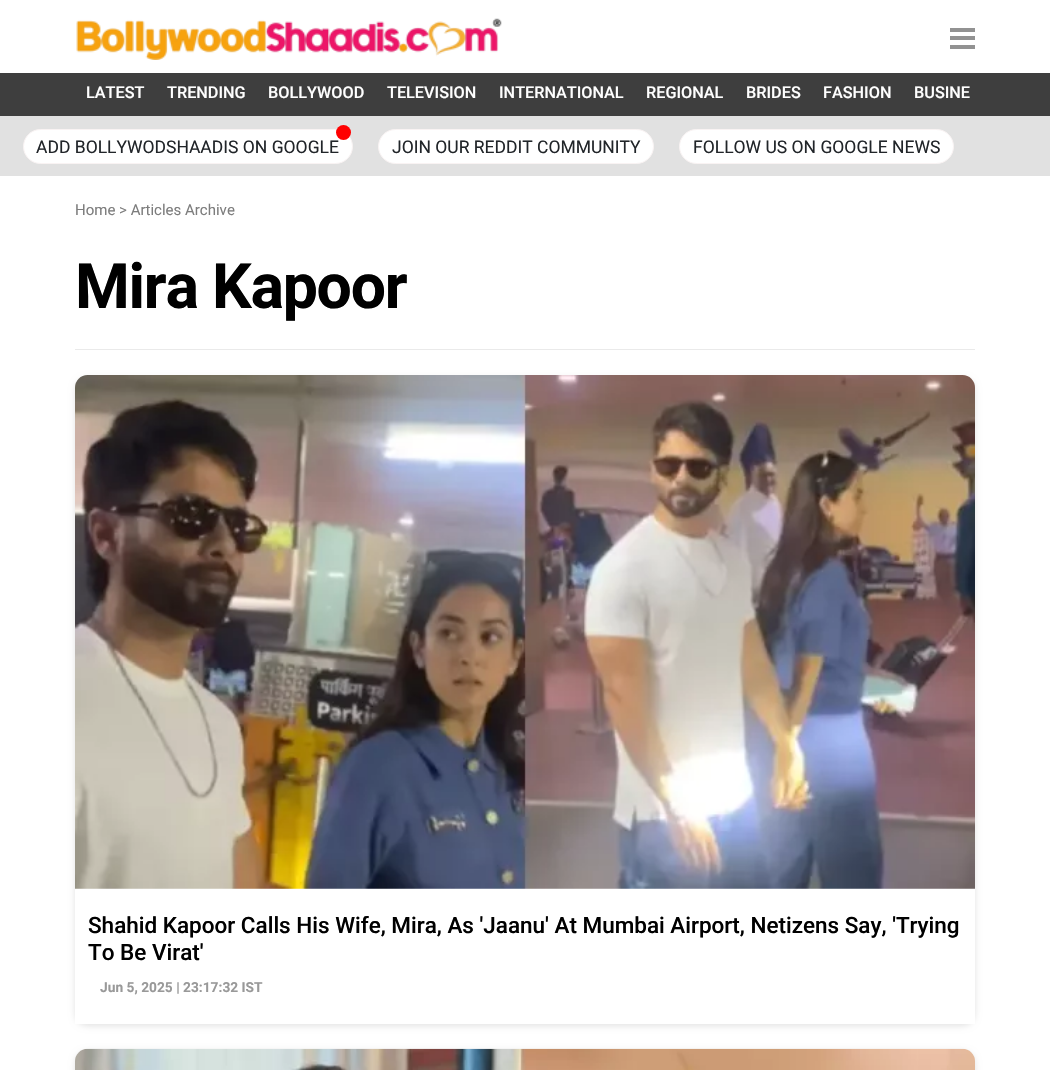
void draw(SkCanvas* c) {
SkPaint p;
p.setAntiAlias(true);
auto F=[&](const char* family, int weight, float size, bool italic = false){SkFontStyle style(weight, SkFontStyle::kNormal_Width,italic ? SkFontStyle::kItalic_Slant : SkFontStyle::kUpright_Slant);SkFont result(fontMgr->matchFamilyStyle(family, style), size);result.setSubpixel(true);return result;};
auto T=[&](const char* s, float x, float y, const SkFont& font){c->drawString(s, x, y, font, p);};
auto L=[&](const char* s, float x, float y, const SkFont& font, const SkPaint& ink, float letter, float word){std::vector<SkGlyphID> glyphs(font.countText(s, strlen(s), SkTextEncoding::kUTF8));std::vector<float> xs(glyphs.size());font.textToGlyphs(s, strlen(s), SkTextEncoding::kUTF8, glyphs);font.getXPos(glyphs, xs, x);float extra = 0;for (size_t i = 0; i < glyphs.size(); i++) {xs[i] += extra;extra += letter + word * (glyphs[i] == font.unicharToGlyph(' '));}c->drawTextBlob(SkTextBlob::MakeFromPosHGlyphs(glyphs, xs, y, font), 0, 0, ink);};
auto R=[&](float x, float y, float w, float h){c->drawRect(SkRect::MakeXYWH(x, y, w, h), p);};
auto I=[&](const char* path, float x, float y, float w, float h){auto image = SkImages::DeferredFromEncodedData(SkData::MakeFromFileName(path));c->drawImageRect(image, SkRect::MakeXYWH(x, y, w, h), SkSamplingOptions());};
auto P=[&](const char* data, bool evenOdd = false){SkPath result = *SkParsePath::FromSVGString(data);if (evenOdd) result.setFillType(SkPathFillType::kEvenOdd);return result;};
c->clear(0xffffffff);
I("1.png",76,18,426,42);
p.setColor(0xff929292);
R(950,28,25,4);
R(950,36,25,4);
R(950,45,25,4);
p.setColor(0xff3e3e3e);
R(0,73,1050,43);
auto f1 = F("Roboto",500,16.25);
p.setColor(0xffffffff);
T("LATEST",86,98,f1);
T("TRENDING",167,98,f1);
T("BOLLYWOOD",268,98,f1);
T("TELEVISION",387,98,f1);
T("INTERNATIONAL",499,98,f1);
T("REGIONAL",646,98,f1);
T("BRIDES",746,98,f1);
T("FASHION",823,98,f1);
T("BUSINE",914,98,f1);
p.setColor(0xffe1e1e1);
R(0,116,1050,60);
p.setColor(0xffffffff);
c->drawRoundRect(SkRect::MakeXYWH(23.5,129.5,329,34),17,17,p);
p.setStroke(true);
p.setStrokeWidth(1);
p.setColor(0xfff9f3f3);
c->drawRoundRect(SkRect::MakeXYWH(23.5,129.5,329,34),17,17,p);
p.setStroke(false);
p.setColor(0xffff0000);
c->drawCircle(343.5,132.5,7.5,p);
auto f2 = F("Roboto",400,17.5);
p.setColor(0xff212529);
T("ADD BOLLYWODSHAADIS ON GOOGLE",36,153,f2);
p.setColor(0xffffffff);
c->drawRoundRect(SkRect::MakeXYWH(378.5,129.5,275,34),17,17,p);
p.setStroke(true);
p.setColor(0xfff9f3f3);
c->drawRoundRect(SkRect::MakeXYWH(378.5,129.5,275,34),17,17,p);
p.setStroke(false);
p.setColor(0xff212529);
T("JOIN OUR REDDIT COMMUNITY",392,153,f2);
p.setColor(0xffffffff);
c->drawRoundRect(SkRect::MakeXYWH(679.5,129.5,274,34),17,17,p);
p.setStroke(true);
p.setColor(0xfff9f3f3);
c->drawRoundRect(SkRect::MakeXYWH(679.5,129.5,274,34),17,17,p);
p.setStroke(false);
p.setColor(0xff212529);
T("FOLLOW US ON GOOGLE NEWS",693,153,f2);
p.setColor(0xffeaeaea);
R(75,349,900,1);
auto f3 = F("Roboto",400,15);
p.setColor(0xff7d7d7d);
T("Home > Articles Archive",75,215,f3);
auto f4 = F("Roboto",700,62.5);
p.setColor(0xff000000);
L("Mira Kapoor",75,308,f4,p,-1.25,0);
c->save();
c->clipPath(P("M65 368h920v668h-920zm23 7h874c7 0 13 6 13 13v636h-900v-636c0-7 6-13 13-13z",true),true);
p.setColor(0x1c000000);
p.setMaskFilter(SkMaskFilter::MakeBlur(kNormal_SkBlurStyle, 3));
c->drawRoundRect(SkRect::MakeXYWH(75,378,900,648),13,13,p);
p.setMaskFilter(nullptr);
c->restore();
I("2.png",75,375,900,514);
auto f5 = F("Roboto",500,22.5);
p.setColor(0xff000000);
T("Shahid Kapoor Calls His Wife, Mira, As 'Jaanu' At Mumbai Airport, Netizens Say, 'Trying",88,933,f5);
T("To Be Virat'",88,960,f5);
auto f6 = F("Roboto",700,13.75);
p.setColor(0xff999999);
T("Jun 5, 2025 | 23:17:32 IST",100,992,f6);
p.setColor(0x1c000000);
p.setMaskFilter(SkMaskFilter::MakeBlur(kNormal_SkBlurStyle, 3));
c->drawRoundRect(SkRect::MakeXYWH(75,1051,900,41),13,13,p);
p.setMaskFilter(nullptr);
I("3.png",75,1048,900,22);
}
